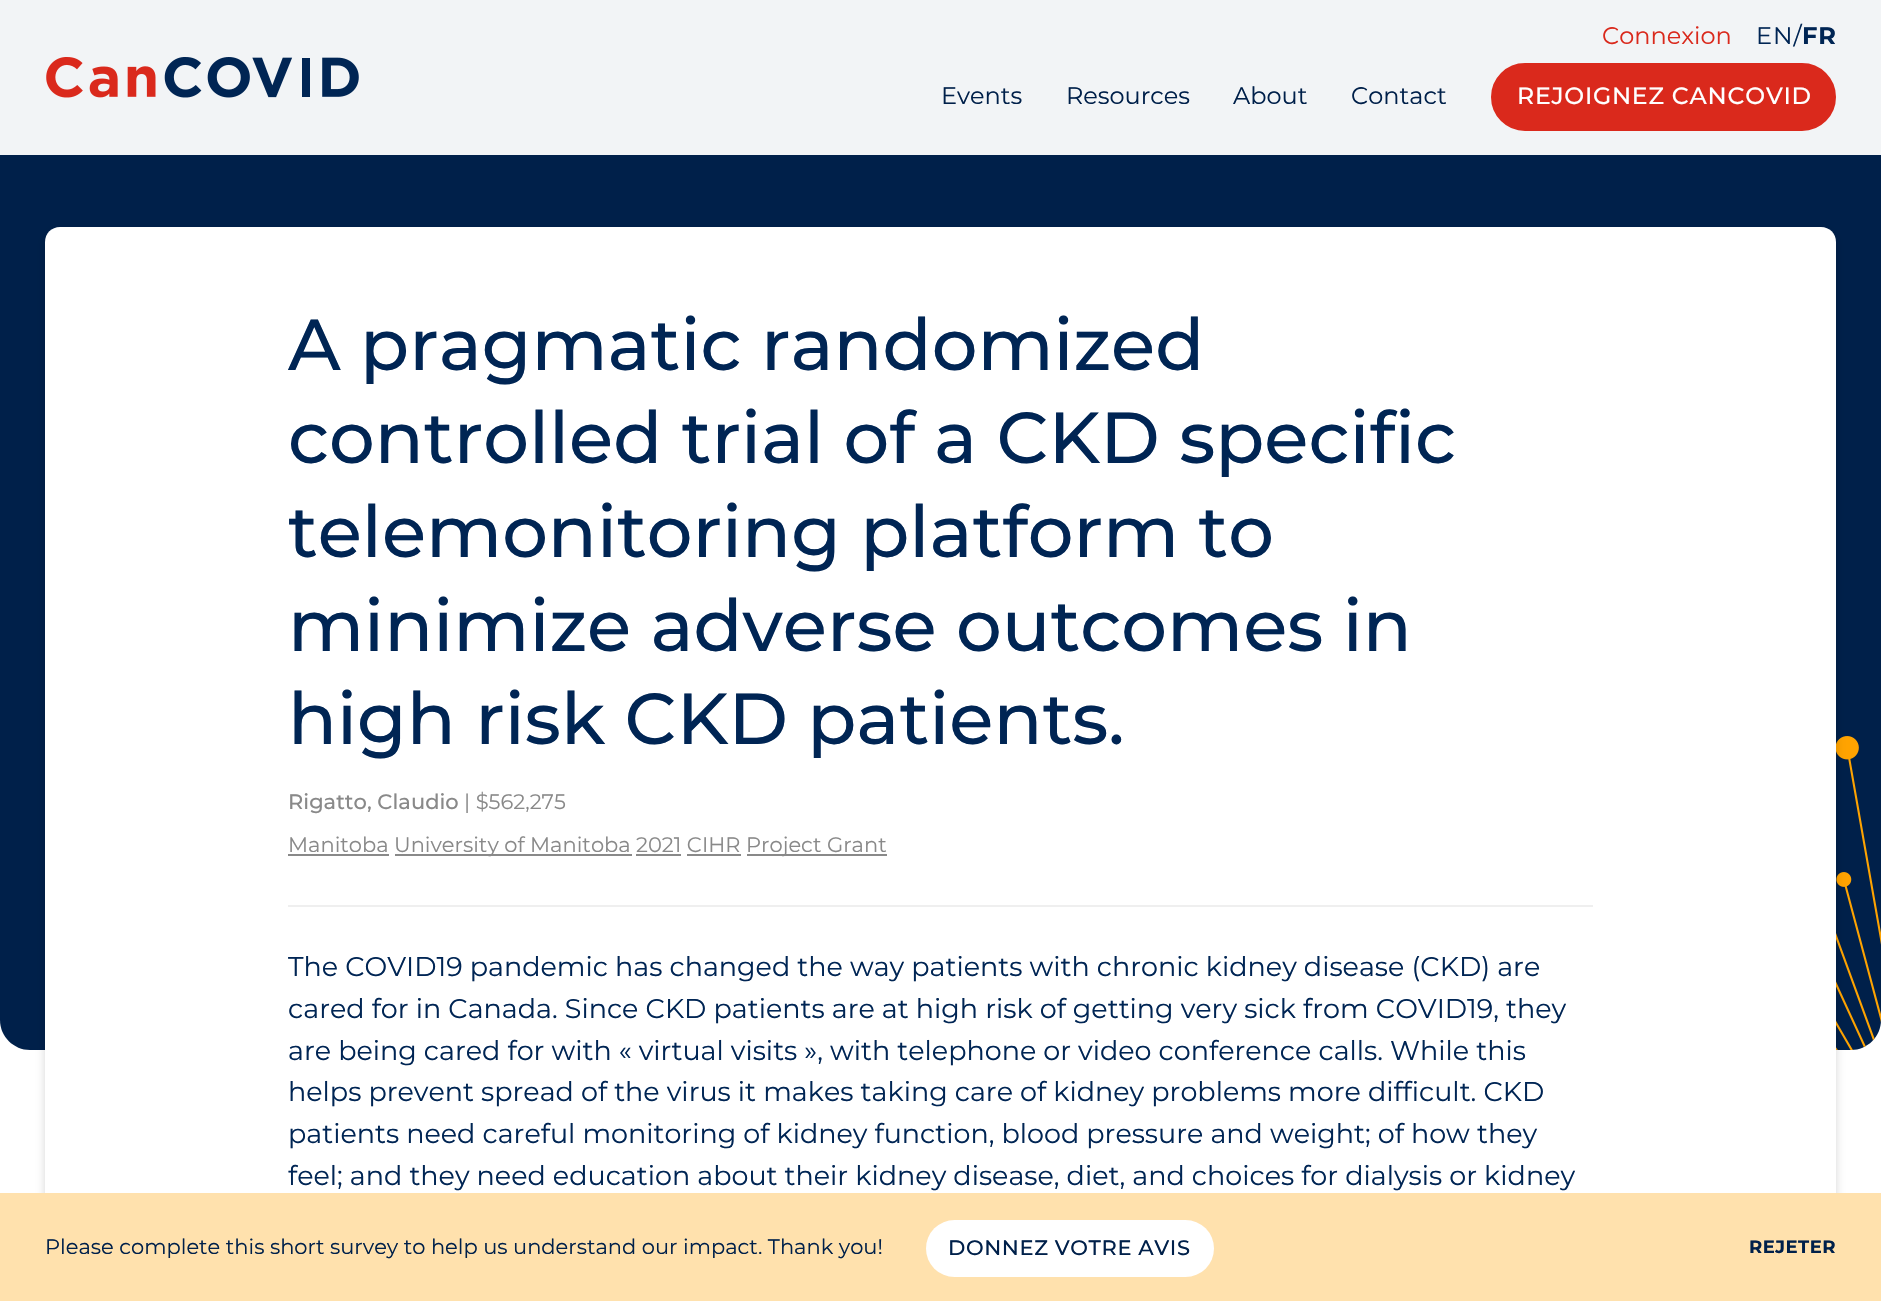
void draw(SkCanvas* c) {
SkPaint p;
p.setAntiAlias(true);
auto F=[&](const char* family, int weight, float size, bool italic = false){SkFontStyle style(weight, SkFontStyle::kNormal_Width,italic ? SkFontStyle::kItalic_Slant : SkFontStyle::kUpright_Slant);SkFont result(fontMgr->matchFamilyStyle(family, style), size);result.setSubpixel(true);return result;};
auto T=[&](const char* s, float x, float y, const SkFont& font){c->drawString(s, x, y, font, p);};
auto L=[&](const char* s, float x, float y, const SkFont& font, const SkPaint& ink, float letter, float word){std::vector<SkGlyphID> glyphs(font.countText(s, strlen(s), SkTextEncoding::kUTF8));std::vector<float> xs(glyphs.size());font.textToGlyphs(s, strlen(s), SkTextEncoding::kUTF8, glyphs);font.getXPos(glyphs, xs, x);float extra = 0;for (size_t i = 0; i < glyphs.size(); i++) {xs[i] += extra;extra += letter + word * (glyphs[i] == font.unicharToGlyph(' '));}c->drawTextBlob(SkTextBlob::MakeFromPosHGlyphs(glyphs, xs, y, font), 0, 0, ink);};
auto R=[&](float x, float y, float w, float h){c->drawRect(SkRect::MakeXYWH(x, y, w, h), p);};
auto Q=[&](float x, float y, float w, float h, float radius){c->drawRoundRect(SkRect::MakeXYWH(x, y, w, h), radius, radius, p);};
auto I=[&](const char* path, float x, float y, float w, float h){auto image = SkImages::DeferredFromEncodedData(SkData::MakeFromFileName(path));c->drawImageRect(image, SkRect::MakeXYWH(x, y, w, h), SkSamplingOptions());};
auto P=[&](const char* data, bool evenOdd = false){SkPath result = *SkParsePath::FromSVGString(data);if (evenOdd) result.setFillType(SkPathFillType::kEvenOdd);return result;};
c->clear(0xffffffff);
p.setColor(0xff00204a);
c->drawPath(P("M0 0h1881v1020c0 16.5-13.5 30-30 30h-1821c-16.5 0-30-13.5-30-30z"),p);
p.setColor(0xf2ffffff);
R(0,0,1881,155);
I("1.png",46,57,313,41);
auto f1 = F("Montserrat",400,24);
p.setColor(0xffda291c);
T("Connexion",1602,44,f1);
p.setColor(0xff002554);
L("EN/",1756,44,f1,p,1,0);
auto f2 = F("Montserrat",700,24);
L("FR",1802,44,f2,p,1,0);
p.setColor(0xff00204a);
T("Events",941,104,f1);
T("Resources",1066,104,f1);
T("About",1233,104,f1);
T("Contact",1351,104,f1);
p.setColor(0xffda291c);
c->drawRoundRect(SkRect::MakeXYWH(1492,64,343,66),33,33,p);
p.setStroke(true);
p.setStrokeWidth(2);
c->drawRoundRect(SkRect::MakeXYWH(1492,64,343,66),33,33,p);
auto f3 = F("Montserrat",500,23.6);
p.setStroke(false);
p.setColor(0xffffffff);
L("REJOIGNEZ CANCOVID",1517,104,f3,p,.75,0);
I("2.png",1836,736,45,314);
p.setColor(0x29000000);
p.setMaskFilter(SkMaskFilter::MakeBlur(kNormal_SkBlurStyle, 4.5));
c->drawRoundRect(SkRect::MakeXYWH(45,231,1791,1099),15,15,p);
p.setMaskFilter(nullptr);
p.setColor(0xffffffff);
c->drawPath(P("M60 227h1761c8.5 0 15 6.5 15 15v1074h-1791v-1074c0-8.5 6.5-15 15-15z"),p);
auto f4 = F("Montserrat",500,72);
p.setColor(0xff002554);
T("A pragmatic randomized",288,370,f4);
T("controlled trial of a CKD specific",288,463,f4);
T("telemonitoring platform to",288,557,f4);
T("minimize adverse outcomes in",288,651,f4);
T("high risk CKD patients.",288,744,f4);
auto f5 = F("Montserrat",500,21);
p.setColor(0xff898989);
T("Rigatto, Claudio",288,809,f5);
auto f6 = F("Montserrat",400,21);
T("| $562,275",464,809,f6);
T("Manitoba",288,852,f6);
R(288,854,101,2);
R(395,854,237,2);
T("University of Manitoba",394,852,f6);
T("2021 CIHR",636,852,f6);
R(636,854,45,2);
R(747,854,140,2);
T("Project Grant",746,852,f6);
R(687,854,54,2);
p.setColor(0xffefefef);
R(288,905,1305,2);
auto f7 = F("Montserrat",400,27);
p.setColor(0xff002554);
T("The COVID‑19 pandemic has changed the way patients with chronic kidney disease (CKD) are",288,976,f7);
T("cared for in Canada. Since CKD patients are at high risk of getting very sick from COVID19, they",288,1018,f7);
T("are being cared for with « virtual visits », with telephone or video conference calls. While this",288,1060,f7);
T("helps prevent spread of the virus it makes taking care of kidney problems more difficult. CKD",288,1101,f7);
T("patients need careful monitoring of kidney function, blood pressure and weight; of how they",288,1143,f7);
T("feel; and they need education about their kidney disease, diet, and choices for dialysis or kidney",288,1185,f7);
p.setColor(0xffffe1ad);
R(0,1193,1881,108);
p.setColor(0xff00204a);
T("Please complete this short survey to help us understand our impact. Thank you!",45,1254,f6);
p.setColor(0xffffffff);
Q(926,1220,288,57,28.5);
p.setColor(0xff00204a);
L("DONNEZ VOTRE AVIS",948,1255,f5,p,.6,0);
auto f8 = F("Montserrat",700,18);
L("REJETER",1749,1253,f8,p,.5,0);
}
